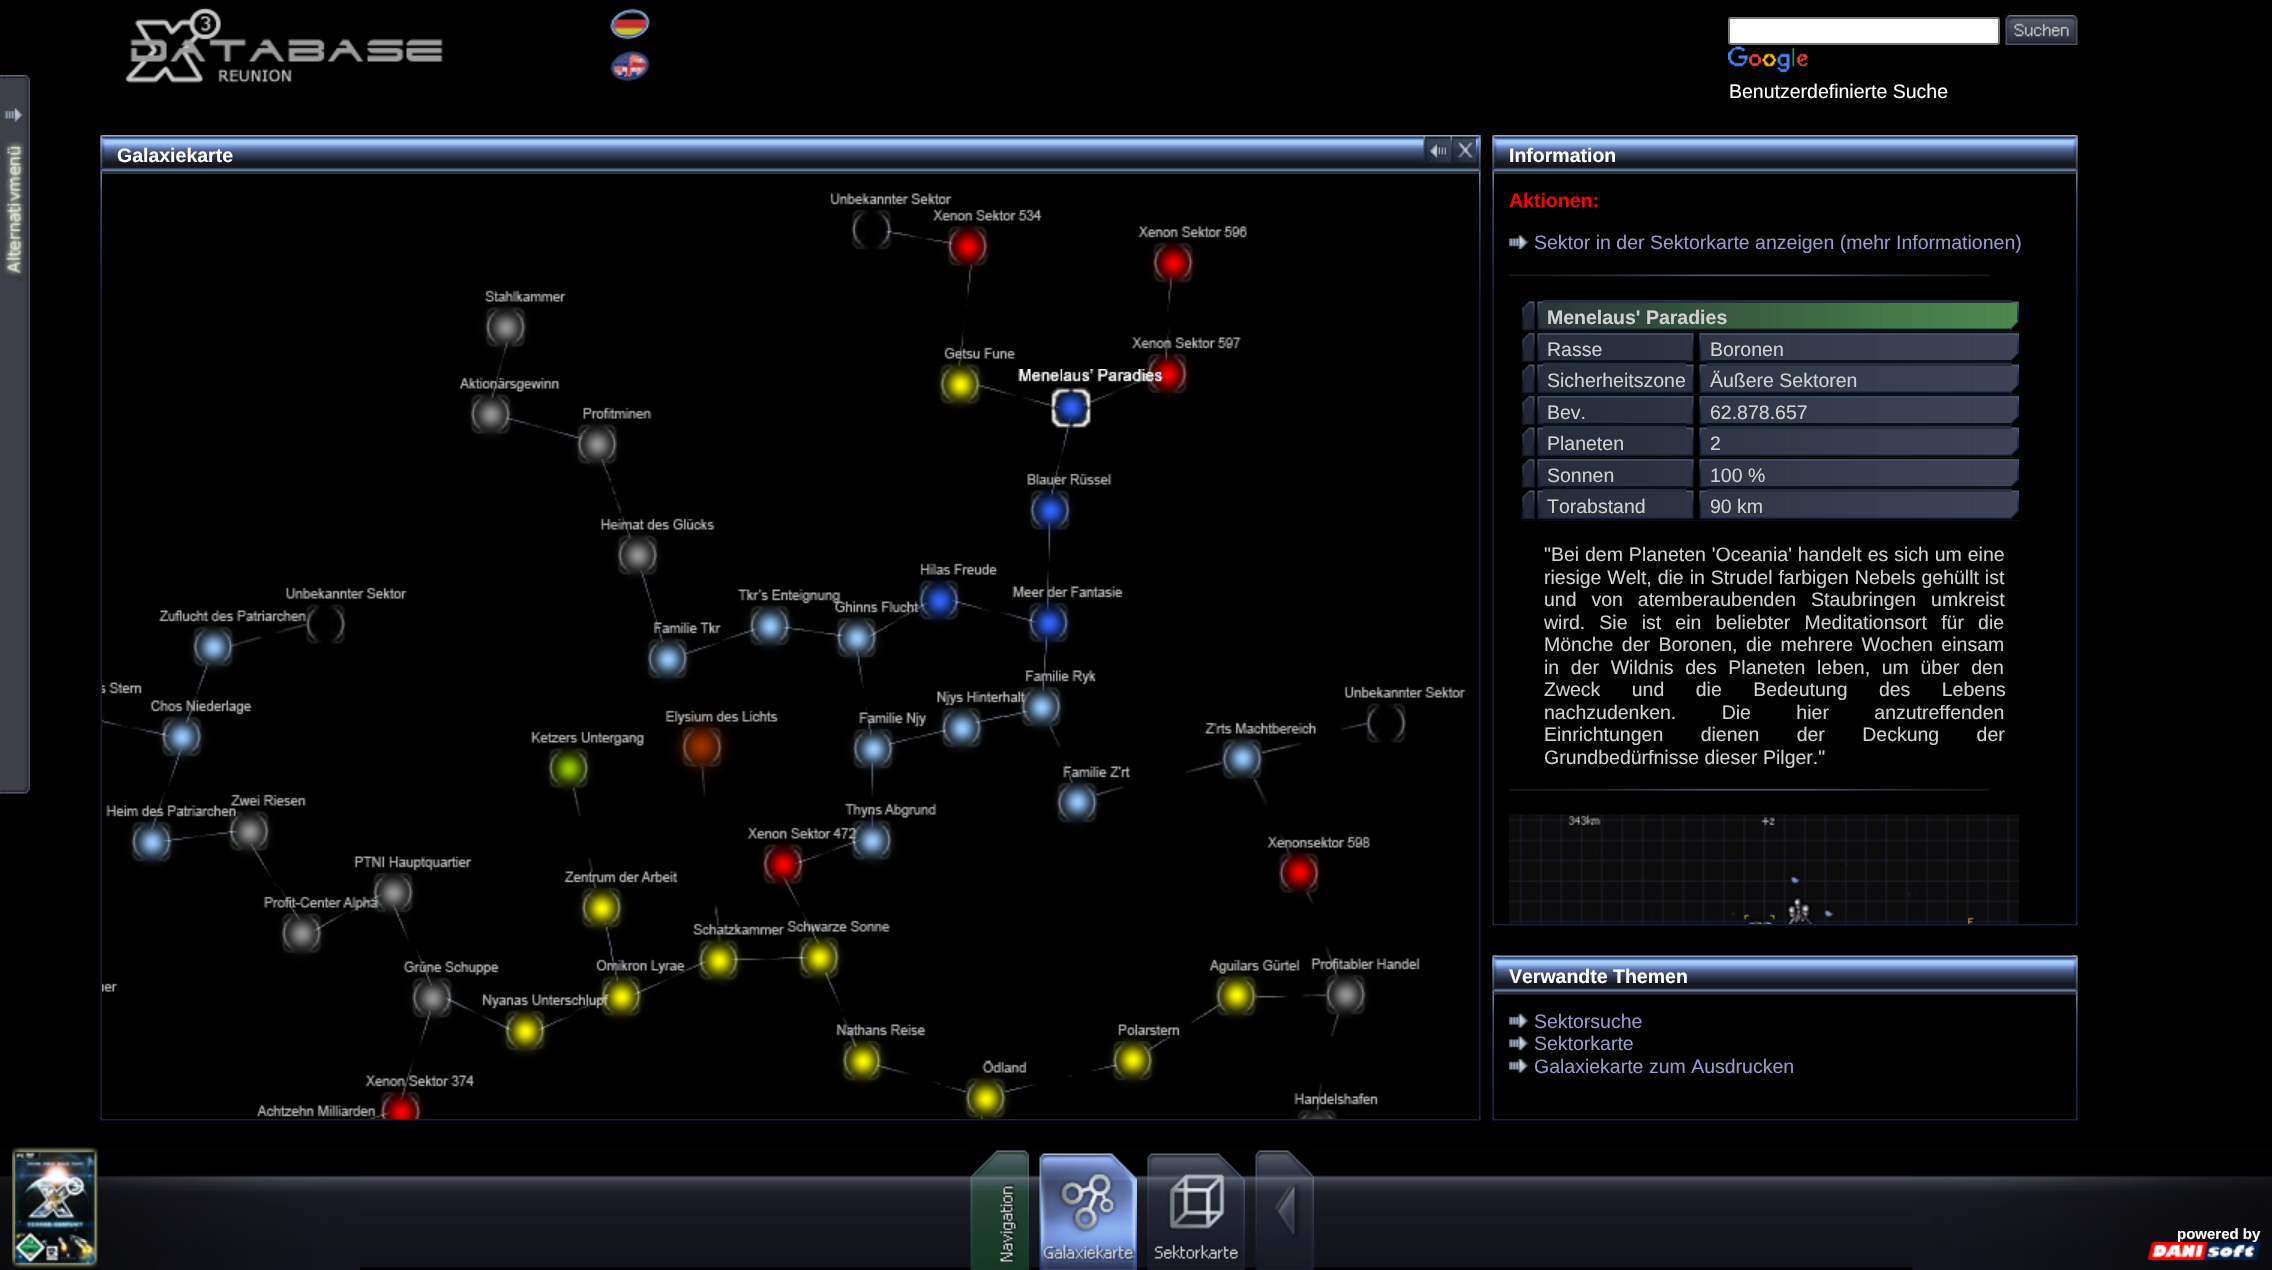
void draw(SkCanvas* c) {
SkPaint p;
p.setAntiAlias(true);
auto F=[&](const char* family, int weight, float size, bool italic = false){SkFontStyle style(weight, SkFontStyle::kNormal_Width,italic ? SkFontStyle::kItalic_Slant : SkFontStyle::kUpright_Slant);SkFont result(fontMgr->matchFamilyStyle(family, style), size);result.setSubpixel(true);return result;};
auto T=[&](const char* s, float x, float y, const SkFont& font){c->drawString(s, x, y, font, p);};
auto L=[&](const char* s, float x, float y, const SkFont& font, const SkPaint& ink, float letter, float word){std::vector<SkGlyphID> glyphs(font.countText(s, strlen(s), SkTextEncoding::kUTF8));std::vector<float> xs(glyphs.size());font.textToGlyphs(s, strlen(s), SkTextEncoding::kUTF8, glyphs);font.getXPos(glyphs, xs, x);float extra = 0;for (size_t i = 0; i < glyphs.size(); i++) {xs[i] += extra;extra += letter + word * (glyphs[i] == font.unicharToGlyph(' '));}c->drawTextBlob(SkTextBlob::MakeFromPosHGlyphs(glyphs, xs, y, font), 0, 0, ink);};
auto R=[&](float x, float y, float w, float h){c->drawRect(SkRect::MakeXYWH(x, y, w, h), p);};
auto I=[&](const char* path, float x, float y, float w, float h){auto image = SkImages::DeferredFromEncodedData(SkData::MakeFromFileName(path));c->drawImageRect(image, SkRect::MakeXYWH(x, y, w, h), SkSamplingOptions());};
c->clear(0xff000000);
I("1.png",0,75,5,6);
I("2.png",4,75,20,6);
I("3.png",24,75,6,6);
p.setColor(0xff3d4048);
R(0,81,24,707);
I("4.png",24,81,6,707);
I("5.png",4,108,20,14);
I("6.png",4,141,20,141);
I("7.png",0,788,5,6);
I("8.png",4,788,20,6);
I("9.png",24,787,6,7);
I("10.png",125,7,318,76);
I("11.png",610,8,40,32);
I("12.png",610,50,40,32);
p.setColor(0xffffffff);
c->drawRoundRect(SkRect::MakeXYWH(1729,18,270,26),2,2,p);
p.setStroke(true);
p.setStrokeWidth(2);
p.setColor(0xff767676);
c->drawRoundRect(SkRect::MakeXYWH(1729,18,270,26),2,2,p);
I("13.png",2005,15,73,30);
I("14.png",1728,46,80,27);
auto f1 = F("Liberation Sans",400,19.5);
p.setStroke(false);
p.setColor(0xffffffff);
T("Benutzerdefinierte Suche",1729,98,f1);
I("15.png",100,135,1381,39);
I("16.png",100,135,5,39);
auto f2 = F("Liberation Sans",700,19.5);
T("Galaxiekarte",117,162,f2);
I("17.png",1423,135,53,39);
I("18.png",1476,135,5,39);
I("19.png",100,174,2,944);
I("20.png",100,174,2,122);
I("21.png",1479,174,2,944);
I("24.png",100,1117,1381,4);
p.setColor(0xff000000);
R(102,1117,1377,2);
I("22.png",102,193,1364,926);
I("23.png",1479,174,2,122);
I("25.png",100,1117,2,4);
I("26.png",1479,1117,2,4);
I("27.png",1492,135,586,39);
I("28.png",1492,135,5,39);
p.setColor(0xffffffff);
T("Information",1509,162,f2);
I("29.png",2073,135,5,39);
I("30.png",1492,174,2,749);
I("20.png",1492,174,2,122);
I("31.png",2076,174,2,749);
I("74.png",1492,922,586,4);
p.setColor(0xff000000);
R(1494,922,582,2);
p.setColor(0xffff0000);
T("Aktionen:",1509,207,f2);
I("32.png",1509,235,20,14);
p.setColor(0xff9999cc);
T("Sektor in der Sektorkarte anzeigen (mehr Informationen)",1534,249,f1);
I("33.png",1509,274,240,3);
I("34.png",1749,274,240,3);
I("35.png",1522,300,497,32);
I("36.png",1522,300,22,20);
p.setColor(0xff252f3c);
R(1543,300,469,3);
p.setColor(0xffd0d0d2);
T("Menelaus' Paradies",1547,324,f2);
I("37.png",2011,300,8,20);
I("38.png",1522,322,22,10);
I("39.png",2011,322,8,10);
I("40.png",1543,328,469,4);
I("41.png",1522,331,497,32);
I("42.png",1522,331,22,20);
I("43.png",1543,331,143,4);
T("Rasse",1547,356,f1);
I("44.png",1692,331,10,20);
I("45.png",1686,331,21,20);
I("46.png",1707,331,305,4);
T("Boronen",1710,356,f1);
I("47.png",2011,331,8,20);
I("48.png",1522,354,22,9);
I("49.png",1692,351,10,10);
I("50.png",1686,354,21,9);
I("51.png",2011,354,8,9);
p.setColor(0xff0a101d);
R(1543,360,143,3);
R(1707,360,305,3);
I("52.png",1522,363,497,32);
I("53.png",1522,363,22,20);
p.setColor(0xff252f3c);
R(1543,363,143,3);
p.setColor(0xffd0d0d2);
T("Sicherheitszone",1547,387,f1);
I("54.png",1692,365,10,18);
I("58.png",1692,382,10,13);
I("55.png",1686,363,21,20);
p.setColor(0xff252f3c);
R(1707,363,305,3);
p.setColor(0xffd0d0d2);
T("Äußere Sektoren",1710,387,f1);
I("56.png",2011,363,8,20);
I("57.png",1522,385,22,10);
I("60.png",2011,385,8,10);
I("61.png",1543,391,143,4);
I("62.png",1707,391,305,4);
I("63.png",1522,394,497,32);
I("66.png",1692,394,10,20);
I("59.png",1686,386,21,9);
I("64.png",1522,394,22,20);
I("65.png",1543,394,143,4);
T("Bev.",1547,419,f1);
I("67.png",1686,394,21,20);
I("68.png",1707,394,305,4);
T("62.878.657",1710,419,f1);
I("69.png",2011,394,8,20);
I("48.png",1522,417,22,9);
I("49.png",1692,414,10,10);
I("50.png",1686,417,21,9);
I("51.png",2011,417,8,9);
p.setColor(0xff0a101d);
R(1543,423,143,3);
R(1707,423,305,3);
I("52.png",1522,426,497,32);
I("53.png",1522,426,22,20);
p.setColor(0xff252f3c);
R(1543,426,143,3);
p.setColor(0xffd0d0d2);
T("Planeten",1547,450,f1);
I("54.png",1692,428,10,18);
I("58.png",1692,445,10,13);
I("55.png",1686,426,21,20);
p.setColor(0xff252f3c);
R(1707,426,305,3);
p.setColor(0xffd0d0d2);
T("2",1710,450,f1);
I("56.png",2011,426,8,20);
I("57.png",1522,448,22,10);
I("60.png",2011,448,8,10);
I("61.png",1543,454,143,4);
I("62.png",1707,454,305,4);
I("63.png",1522,457,497,32);
I("66.png",1692,457,10,20);
I("59.png",1686,449,21,9);
I("64.png",1522,457,22,20);
I("65.png",1543,457,143,4);
T("Sonnen",1547,482,f1);
I("67.png",1686,457,21,20);
I("68.png",1707,457,305,4);
T("100 %",1710,482,f1);
I("69.png",2011,457,8,20);
I("48.png",1522,480,22,9);
I("49.png",1692,477,10,10);
I("50.png",1686,480,21,9);
I("51.png",2011,480,8,9);
p.setColor(0xff0a101d);
R(1543,486,143,3);
R(1707,486,305,3);
I("52.png",1522,489,497,32);
I("53.png",1522,489,22,20);
p.setColor(0xff252f3c);
R(1543,489,143,3);
p.setColor(0xffd0d0d2);
T("Torabstand",1547,513,f1);
I("54.png",1692,491,10,18);
I("58.png",1692,508,10,13);
I("55.png",1686,489,21,20);
p.setColor(0xff252f3c);
R(1707,489,305,3);
p.setColor(0xffd0d0d2);
T("90 km",1710,513,f1);
I("56.png",2011,489,8,20);
I("57.png",1522,511,22,10);
I("70.png",1686,512,21,9);
I("60.png",2011,511,8,10);
I("61.png",1543,517,143,4);
I("62.png",1707,517,305,4);
L("\"Bei dem Planeten 'Oceania' handelt es sich um eine",1544,561,f1,p,0,.5);
L("riesige Welt, die in Strudel farbigen Nebels gehüllt ist",1544,584,f1,p,0,.5);
L("und von atemberaubenden Staubringen umkreist",1544,606,f1,p,0,9.5);
L("wird. Sie ist ein beliebter Meditationsort für die",1544,629,f1,p,0,8.75);
L("Mönche der Boronen, die mehrere Wochen einsam",1544,651,f1,p,0,3);
L("in der Wildnis des Planeten leben, um über den",1544,674,f1,p,0,6.25);
L("Zweck und die Bedeutung des Lebens",1544,696,f1,p,0,26);
L("nachzudenken. Die hier anzutreffenden",1544,719,f1,p,0,40);
L("Einrichtungen dienen der Deckung der",1544,741,f1,p,0,32);
T("Grundbedürfnisse dieser Pilger.\"",1544,764,f1);
I("71.png",1509,788,240,3);
I("72.png",1749,788,240,3);
I("73.png",1509,814,510,110);
I("23.png",2076,174,2,122);
I("25.png",1492,922,2,4);
I("26.png",2076,922,2,4);
I("78.png",1492,994,2,124);
I("79.png",1492,994,2,122);
I("80.png",2076,994,2,124);
I("82.png",2076,994,2,122);
I("75.png",1492,955,586,40);
I("76.png",1492,955,5,40);
p.setColor(0xffffffff);
T("Verwandte Themen",1509,983,f2);
I("77.png",2073,955,5,40);
I("74.png",1492,1117,586,4);
p.setColor(0xff000000);
R(1494,1117,582,2);
I("81.png",1509,1014,20,14);
p.setColor(0xff9999cc);
T("Sektorsuche",1534,1028,f1);
I("32.png",1509,1036,20,14);
T("Sektorkarte",1534,1050,f1);
I("81.png",1509,1059,20,14);
T("Galaxiekarte zum Ausdrucken",1534,1073,f1);
I("25.png",1492,1117,2,4);
I("26.png",2076,1117,2,4);
I("83.png",0,1150,2272,118);
I("84.png",0,1175,360,95);
I("85.png",1912,1175,360,95);
I("86.png",12,1147,86,121);
I("87.png",970,1150,59,120);
I("88.png",1039,1153,98,117);
I("89.png",1147,1153,98,117);
I("90.png",1255,1150,59,120);
auto f3 = F("Liberation Sans",700,15);
p.setColor(0xffffffff);
T("powered by",2177,1239,f3);
I("91.png",2148,1242,113,18);
}
